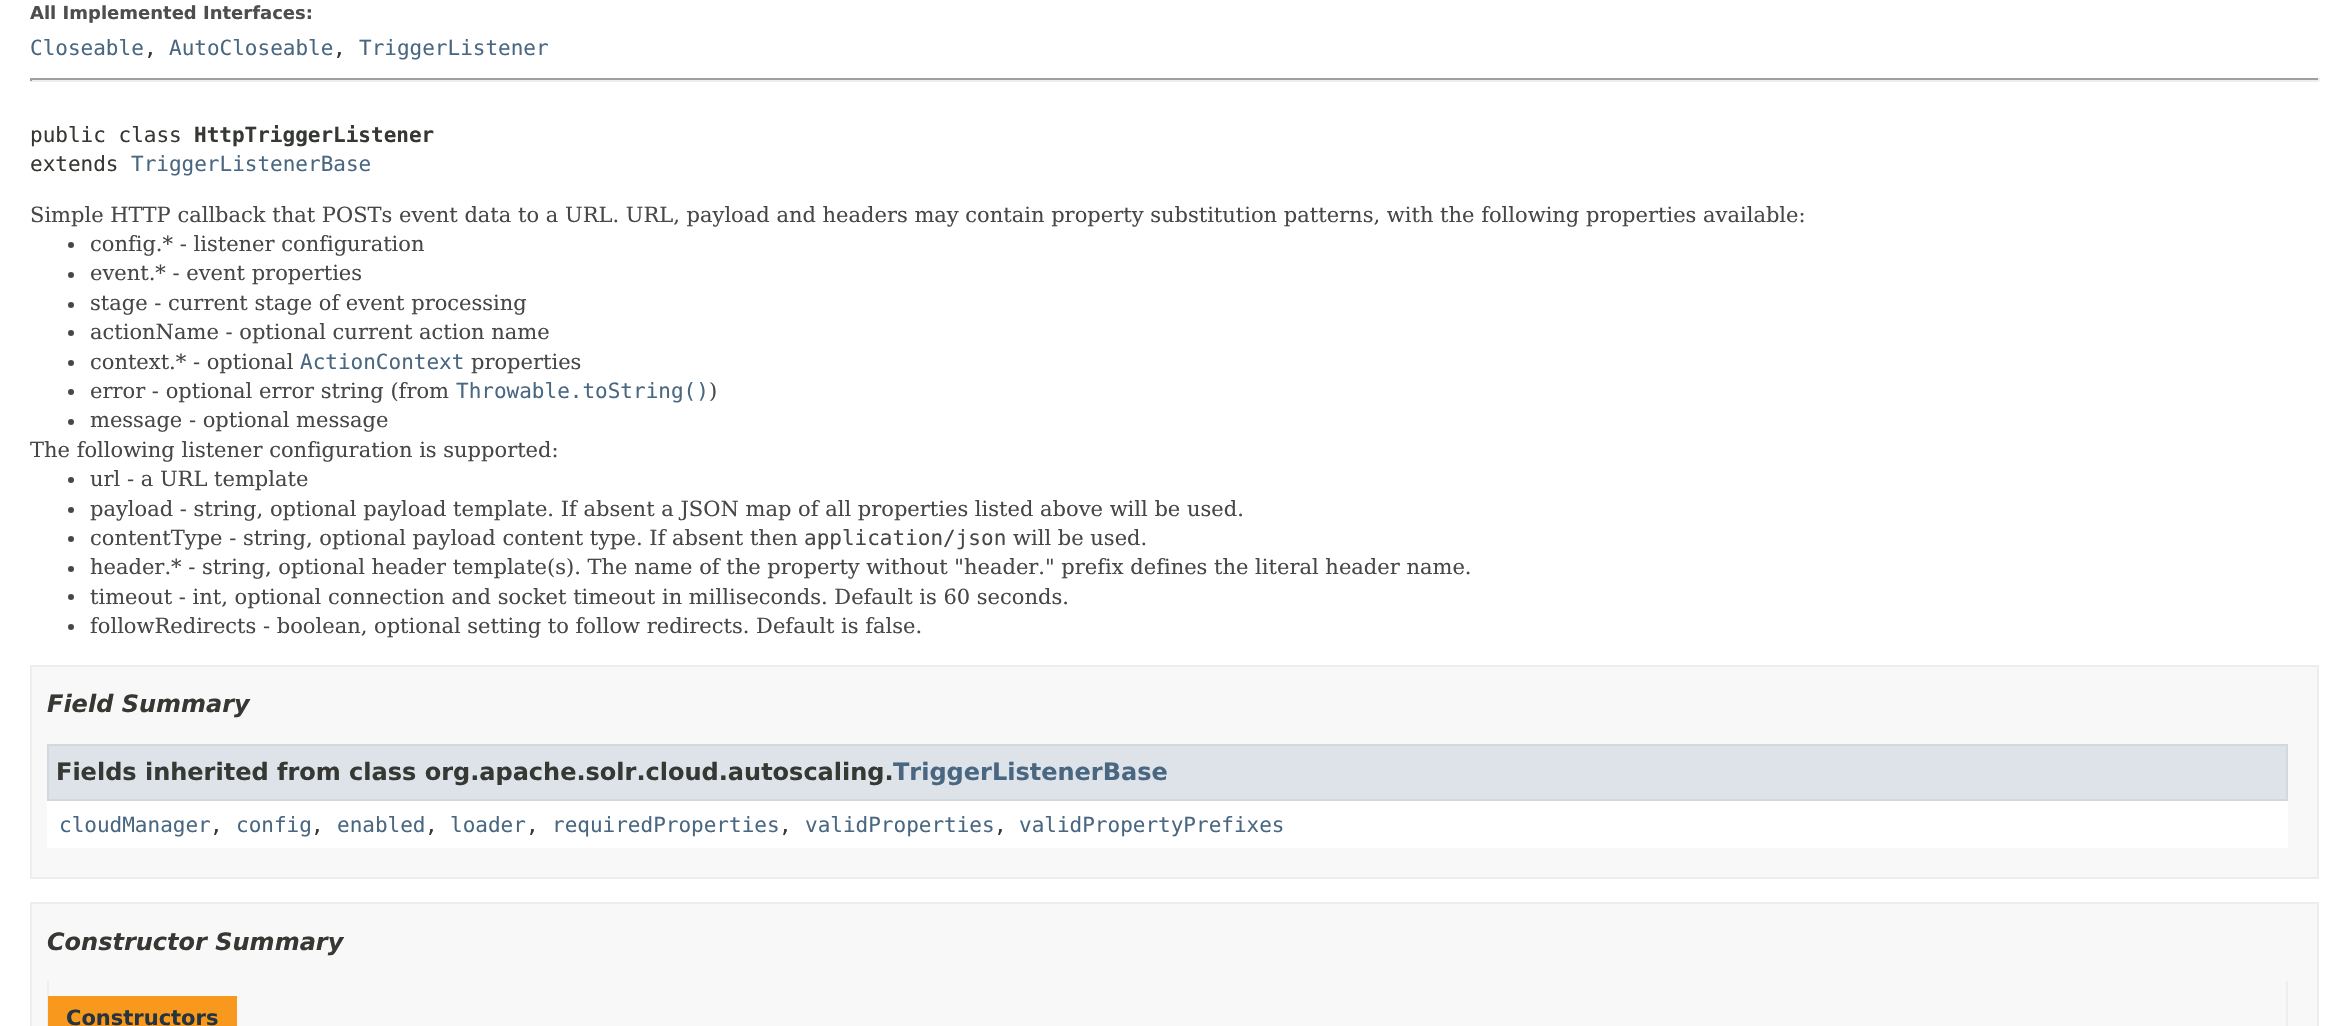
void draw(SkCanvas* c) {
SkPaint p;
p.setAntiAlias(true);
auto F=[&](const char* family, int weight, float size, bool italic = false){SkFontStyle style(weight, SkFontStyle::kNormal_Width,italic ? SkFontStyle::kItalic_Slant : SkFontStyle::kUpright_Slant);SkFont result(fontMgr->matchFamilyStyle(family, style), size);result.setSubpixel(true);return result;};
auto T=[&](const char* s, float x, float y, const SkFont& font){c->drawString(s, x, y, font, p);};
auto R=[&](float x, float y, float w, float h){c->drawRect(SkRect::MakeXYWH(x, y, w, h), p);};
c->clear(0xffffffff);
auto f1 = F("DejaVu Sans",700,18);
p.setColor(0xff4e4e4e);
T("All Implemented Interfaces:",30,19,f1);
auto f2 = F("DejaVu Sans Mono",400,21);
p.setColor(0xff4a6782);
T("Closeable",30,55,f2);
p.setColor(0xff353833);
T(",",144,55,f2);
p.setColor(0xff4a6782);
T("AutoCloseable",169,55,f2);
p.setColor(0xff353833);
T(",",333,55,f2);
p.setColor(0xff4a6782);
T("TriggerListener",359,55,f2);
p.setColor(0xff9f9f9f);
R(30,78,2289,2);
p.setColor(0xffeeeeee);
R(2318,78,2,3);
R(30,80,2289,2);
p.setColor(0xff9f9f9f);
R(30,78,2,3);
p.setColor(0xff353833);
T("public class",30,142,f2);
auto f3 = F("DejaVu Sans Mono",700,21);
T("HttpTriggerListener",194,142,f3);
T("extends",30,171,f2);
p.setColor(0xff4a6782);
T("TriggerListenerBase",131,171,f2);
auto f4 = F("DejaVu Serif",400,21);
p.setColor(0xff474747);
T("Simple HTTP callback that POSTs event data to a URL. URL, payload and headers may contain property substitution patterns, with the following properties available:",30,222,f4);
c->drawCircle(71,245,3,p);
T("config.* - listener configuration",90,251,f4);
c->drawCircle(71,275,3,p);
T("event.* - event properties",90,280,f4);
c->drawCircle(71,305,3,p);
T("stage - current stage of event processing",90,310,f4);
c->drawCircle(71,333,3,p);
T("actionName - optional current action name",90,339,f4);
c->drawCircle(71,363,3,p);
T("context.* - optional",90,369,f4);
p.setColor(0xff4a6782);
T("ActionContext",300,369,f2);
p.setColor(0xff474747);
T("properties",471,369,f4);
c->drawCircle(71,392,3,p);
T("error - optional error string (from",90,398,f4);
p.setColor(0xff4a6782);
T("Throwable.toString()",456,398,f2);
p.setColor(0xff474747);
T(")",709,398,f4);
c->drawCircle(71,422,3,p);
T("message - optional message",90,427,f4);
T("The following listener configuration is supported:",30,457,f4);
c->drawCircle(71,480,3,p);
T("url - a URL template",90,486,f4);
c->drawCircle(71,510,3,p);
T("payload - string, optional payload template. If absent a JSON map of all properties listed above will be used.",90,516,f4);
c->drawCircle(71,539,3,p);
T("contentType - string, optional payload content type. If absent then",90,545,f4);
T("application/json",804,545,f2);
T("will be used.",1013,545,f4);
c->drawCircle(71,569,3,p);
T("header.* - string, optional header template(s). The name of the property without \"header.\" prefix defines the literal header name.",90,574,f4);
c->drawCircle(71,597,3,p);
T("timeout - int, optional connection and socket timeout in milliseconds. Default is 60 seconds.",90,604,f4);
c->drawCircle(71,627,3,p);
T("followRedirects - boolean, optional setting to follow redirects. Default is false.",90,633,f4);
p.setColor(0xfff8f8f8);
c->drawRect(SkRect::MakeXYWH(31,666,2287,212),p);
p.setStroke(true);
p.setStrokeWidth(2);
p.setColor(0xffededed);
c->drawRect(SkRect::MakeXYWH(31,666,2287,212),p);
auto f5 = F("DejaVu Sans",700,24,true);
p.setStroke(false);
p.setColor(0xff353833);
T("Field Summary",47,712,f5);
p.setColor(0xffffffff);
R(47,801,2241,47);
p.setColor(0xffdee3e9);
c->drawRect(SkRect::MakeXYWH(48,745,2239,55),p);
p.setStroke(true);
p.setColor(0xffd0d9e0);
c->drawRect(SkRect::MakeXYWH(48,745,2239,55),p);
auto f6 = F("DejaVu Sans",700,24);
p.setStroke(false);
p.setColor(0xff353833);
T("Fields inherited from class org.apache.solr.cloud.autoscaling.",56,780,f6);
p.setColor(0xff4a6782);
T("TriggerListenerBase",893,780,f6);
T("cloudManager",59,832,f2);
p.setColor(0xff353833);
T(",",210,832,f2);
p.setColor(0xff4a6782);
T("config",236,832,f2);
p.setColor(0xff353833);
T(",",311,832,f2);
p.setColor(0xff4a6782);
T("enabled",337,832,f2);
p.setColor(0xff353833);
T(",",425,832,f2);
p.setColor(0xff4a6782);
T("loader",450,832,f2);
p.setColor(0xff353833);
T(",",526,832,f2);
p.setColor(0xff4a6782);
T("requiredProperties",552,832,f2);
p.setColor(0xff353833);
T(",",779,832,f2);
p.setColor(0xff4a6782);
T("validProperties",805,832,f2);
p.setColor(0xff353833);
T(",",994,832,f2);
p.setColor(0xff4a6782);
T("validPropertyPrefixes",1019,832,f2);
p.setColor(0xfff8f8f8);
c->drawRect(SkRect::MakeXYWH(31,903,2287,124),p);
p.setStroke(true);
p.setColor(0xffededed);
c->drawRect(SkRect::MakeXYWH(31,903,2287,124),p);
p.setStroke(false);
p.setColor(0xff353833);
T("Constructor Summary",47,950,f5);
p.setColor(0xffeeeeee);
R(2286,981,2,45);
R(47,981,2,45);
p.setColor(0xfff8981d);
R(48,996,189,30);
auto f7 = F("DejaVu Sans",700,21);
p.setColor(0xff253441);
T("Constructors",66,1025,f7);
}
